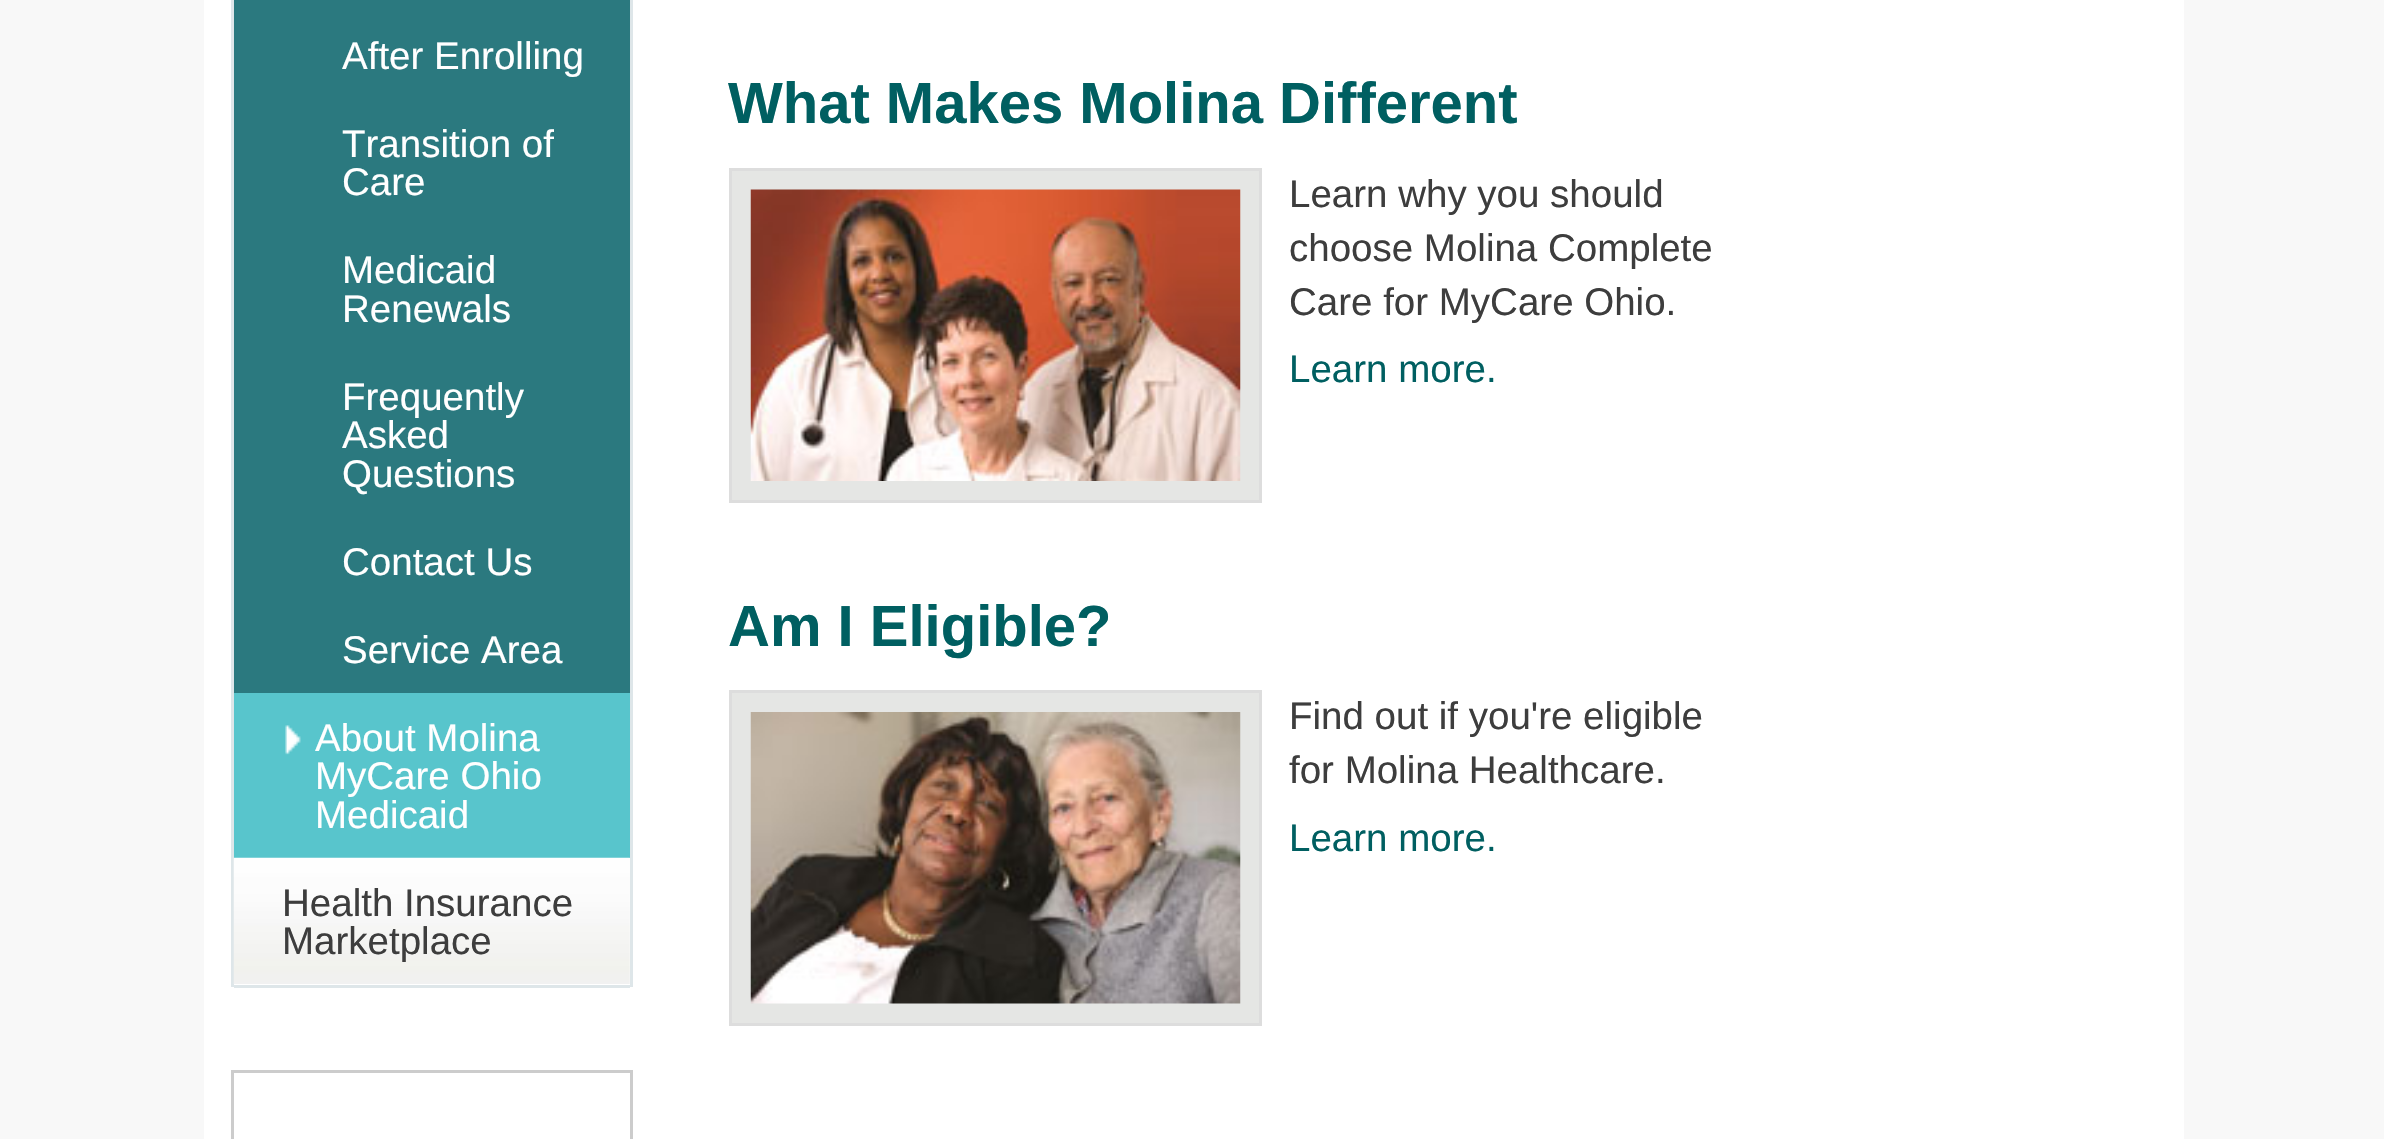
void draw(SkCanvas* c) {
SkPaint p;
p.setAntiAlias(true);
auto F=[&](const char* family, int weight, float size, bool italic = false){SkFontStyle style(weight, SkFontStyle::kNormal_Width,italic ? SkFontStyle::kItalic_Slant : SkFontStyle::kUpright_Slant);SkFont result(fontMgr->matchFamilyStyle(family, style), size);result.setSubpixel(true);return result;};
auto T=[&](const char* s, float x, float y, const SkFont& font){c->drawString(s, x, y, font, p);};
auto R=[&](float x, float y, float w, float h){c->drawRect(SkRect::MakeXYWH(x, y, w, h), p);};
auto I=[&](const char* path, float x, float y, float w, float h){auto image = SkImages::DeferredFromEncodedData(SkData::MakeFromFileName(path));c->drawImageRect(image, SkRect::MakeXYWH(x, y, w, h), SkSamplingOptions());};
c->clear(0xfff8f8f8);
p.setColor(0xffffffff);
R(204,0,1980,1139);
p.setColor(0xffdee6e9);
R(630,0,3,987);
R(231,0,3,987);
p.setColor(0xff2b797f);
R(234,0,396,693);
auto f1 = F("Liberation Sans",400,38.5);
p.setColor(0xffffffff);
T("After Enrolling",342,69,f1);
T("Transition of",342,157,f1);
T("Care",342,195,f1);
T("Medicaid",342,283,f1);
T("Renewals",342,322,f1);
T("Frequently",342,410,f1);
T("Asked",342,448,f1);
T("Questions",342,487,f1);
T("Contact Us",342,575,f1);
T("Service Area",342,663,f1);
p.setColor(0xff58c5cc);
R(234,693,396,165);
I("1.png",285,725,16,30);
p.setColor(0xffffffff);
T("About Molina",315,751,f1);
T("MyCare Ohio",315,789,f1);
T("Medicaid",315,828,f1);
I("2.png",233,857,397,127);
p.setColor(0xffdee6e9);
R(234,985,396,3);
p.setColor(0xff3d3d3d);
T("Health Insurance",282,916,f1);
T("Marketplace",282,954,f1);
p.setStroke(true);
p.setStrokeWidth(3);
p.setColor(0xffcccccc);
c->drawRect(SkRect::MakeXYWH(232.5,1071.5,399,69),p);
auto f2 = F("Liberation Sans",700,58);
p.setStroke(false);
p.setColor(0xff005f61);
T("What Makes Molina Different",728,123,f2);
p.setColor(0xffe5e6e4);
c->drawRect(SkRect::MakeXYWH(730.5,169.5,530,332),p);
p.setStroke(true);
p.setColor(0xffdddddd);
c->drawRect(SkRect::MakeXYWH(730.5,169.5,530,332),p);
I("3.png",750,189,491,292);
p.setStroke(false);
p.setColor(0xff3d3d3d);
T("Learn why you should",1289,207,f1);
T("choose Molina Complete",1289,261,f1);
T("Care for MyCare Ohio.",1289,315,f1);
p.setColor(0xff005f61);
T("Learn more.",1289,382,f1);
T("Am I Eligible?",728,646,f2);
p.setColor(0xffe5e6e4);
c->drawRect(SkRect::MakeXYWH(730.5,691.5,530,333),p);
p.setStroke(true);
p.setColor(0xffdddddd);
c->drawRect(SkRect::MakeXYWH(730.5,691.5,530,333),p);
I("4.png",750,712,491,292);
p.setStroke(false);
p.setColor(0xff3d3d3d);
T("Find out if you're eligible",1289,729,f1);
T("for Molina Healthcare.",1289,783,f1);
p.setColor(0xff005f61);
T("Learn more.",1289,851,f1);
}
